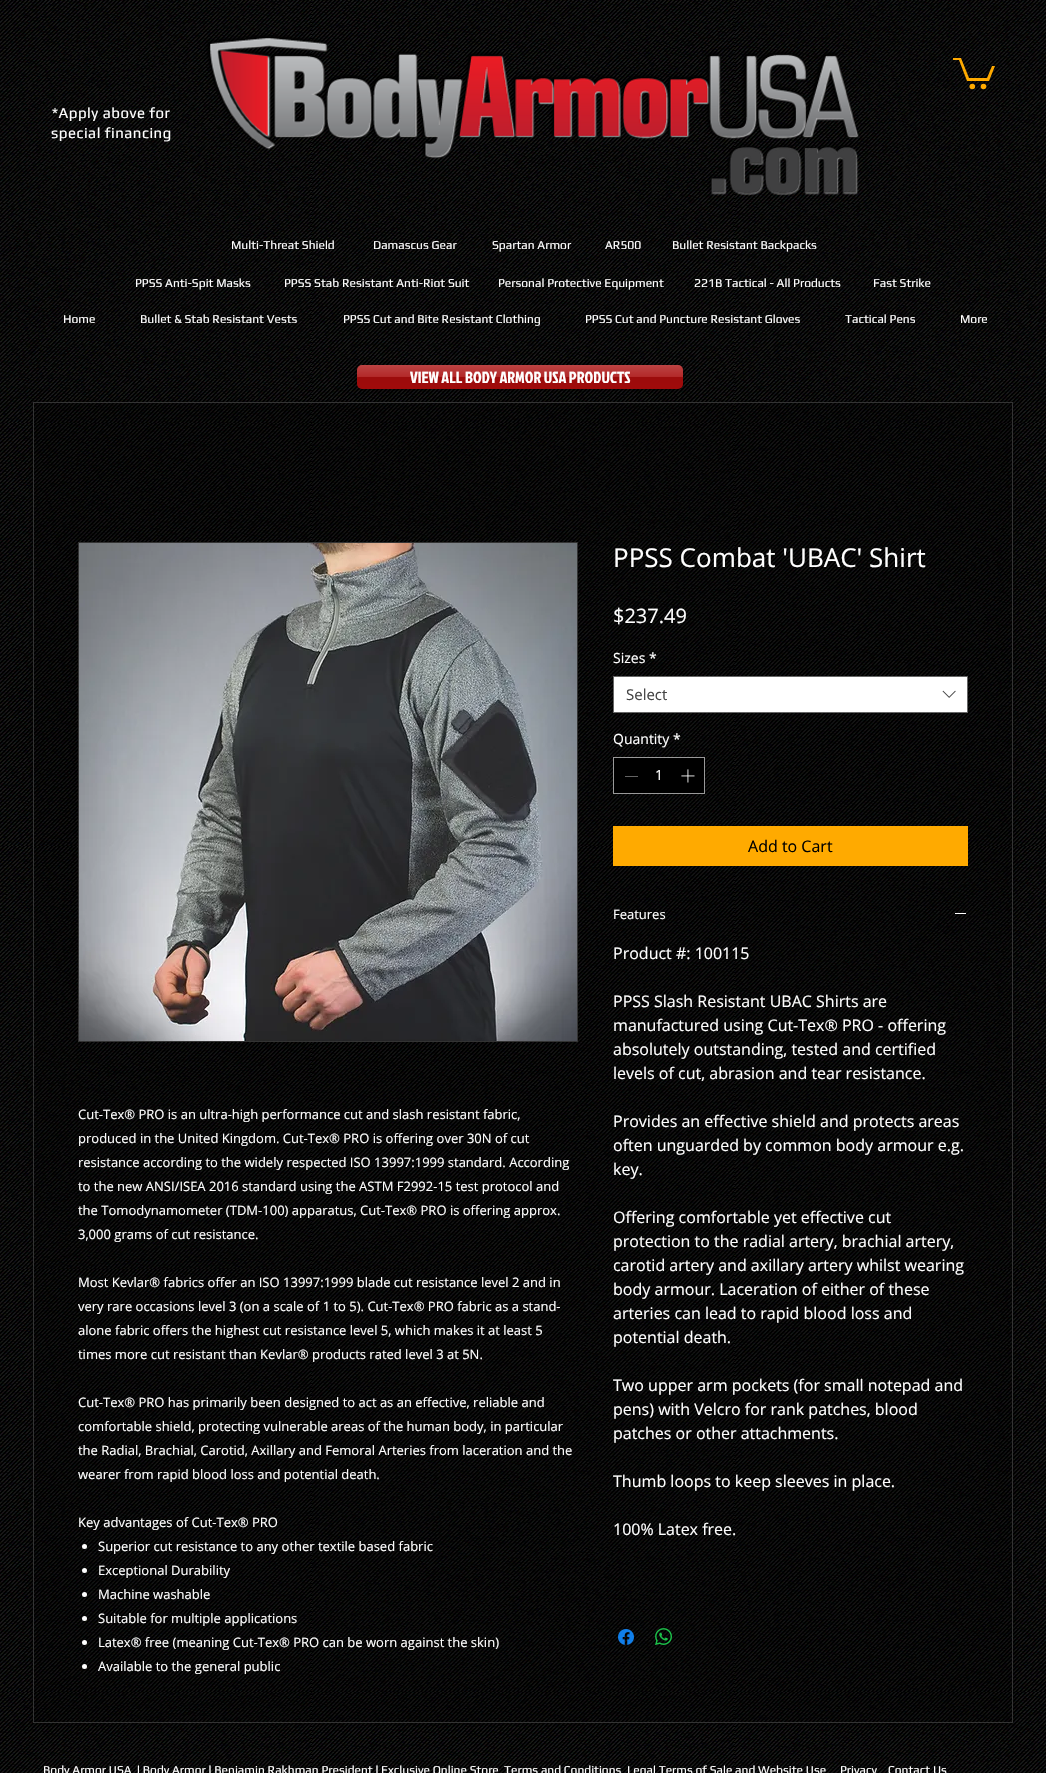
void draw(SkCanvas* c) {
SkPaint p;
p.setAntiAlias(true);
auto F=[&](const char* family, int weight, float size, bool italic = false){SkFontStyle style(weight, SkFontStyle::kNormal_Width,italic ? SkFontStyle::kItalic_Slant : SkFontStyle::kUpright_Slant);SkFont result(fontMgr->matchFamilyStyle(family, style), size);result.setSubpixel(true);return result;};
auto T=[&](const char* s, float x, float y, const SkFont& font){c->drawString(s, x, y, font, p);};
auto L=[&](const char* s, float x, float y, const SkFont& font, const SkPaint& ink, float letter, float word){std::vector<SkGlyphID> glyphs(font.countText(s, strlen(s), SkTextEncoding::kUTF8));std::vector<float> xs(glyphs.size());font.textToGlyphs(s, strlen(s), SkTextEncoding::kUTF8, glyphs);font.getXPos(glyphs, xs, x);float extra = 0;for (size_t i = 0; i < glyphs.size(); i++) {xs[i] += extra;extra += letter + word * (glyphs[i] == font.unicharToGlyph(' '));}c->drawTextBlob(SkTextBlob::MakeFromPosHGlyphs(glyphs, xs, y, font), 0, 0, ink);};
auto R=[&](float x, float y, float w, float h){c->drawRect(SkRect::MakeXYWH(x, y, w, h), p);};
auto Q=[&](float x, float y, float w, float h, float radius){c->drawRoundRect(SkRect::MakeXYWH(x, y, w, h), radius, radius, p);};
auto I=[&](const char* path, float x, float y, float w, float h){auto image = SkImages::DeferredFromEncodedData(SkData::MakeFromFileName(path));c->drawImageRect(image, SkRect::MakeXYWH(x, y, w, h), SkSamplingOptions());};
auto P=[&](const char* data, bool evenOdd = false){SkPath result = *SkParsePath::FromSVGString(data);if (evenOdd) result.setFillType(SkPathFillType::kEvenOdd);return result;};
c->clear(0xff000000);
I("1.png",0,0,1046,1773);
I("2.png",206,34,653,162);
p.setColor(0xffffaa00);
c->drawPath(P("M995 66l-6 15h-22l-8-21h-6v-2h8l8 20h18l5-12"),p);
c->drawCircle(983.5,86.5,2.8,p);
c->drawCircle(972.3,86.5,2.8,p);
auto f1 = F("Play",400,15);
p.setColor(0xffffffff);
L("*Apply above for",52,118,f1,p,.5,0);
L("special financing",51,138,f1,p,.5,0);
auto f2 = F("Play",400,12);
T("Multi-Threat Shield",231,249,f2);
T("Damascus Gear",373,249,f2);
T("Spartan Armor",492,249,f2);
T("AR500",605,249,f2);
T("Bullet Resistant Backpacks",672,249,f2);
T("PPSS Anti-Spit Masks",135,287,f2);
T("PPSS Stab Resistant Anti-Riot Suit",284,287,f2);
T("Personal Protective Equipment",498,287,f2);
T("221B Tactical - All Products",694,287,f2);
T("Fast Strike",873,287,f2);
T("Home",63,323,f2);
T("Bullet & Stab Resistant Vests",140,323,f2);
T("PPSS Cut and Bite Resistant Clothing",343,323,f2);
T("PPSS Cut and Puncture Resistant Gloves",585,323,f2);
T("Tactical Pens",845,323,f2);
T("More",960,323,f2);
p.setColor(0x99000000);
p.setMaskFilter(SkMaskFilter::MakeBlur(kNormal_SkBlurStyle, 2));
c->drawRoundRect(SkRect::MakeXYWH(357,366,326,24),5,5,p);
p.setMaskFilter(nullptr);
p.setColor(0xffa80b0b);
Q(357,365,326,24,5);
I("3.png",357,365,326,24);
auto f3 = F("Jockey One",400,16);
p.setColor(0xffffffff);
T("VIEW ALL BODY ARMOR USA PRODUCTS",410,383,f3);
c->save();
c->clipPath(P("M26 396h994v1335h-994zm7 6h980v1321h-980z",true),true);
p.setColor(0x99000000);
p.setMaskFilter(SkMaskFilter::MakeBlur(kNormal_SkBlurStyle, 2));
c->drawRect(SkRect::MakeXYWH(33,403,980,1321),p);
p.setMaskFilter(nullptr);
c->restore();
p.setColor(0x40000000);
c->drawRect(SkRect::MakeXYWH(33.5,402.5,979,1320),p);
p.setStroke(true);
p.setStrokeWidth(1);
p.setColor(0xff333333);
c->drawRect(SkRect::MakeXYWH(33.5,402.5,979,1320),p);
c->drawRect(SkRect::MakeXYWH(78.5,542.5,499,499),p);
I("4.png",79,543,498,498);
auto f4 = F("Open Sans",400,13);
p.setStroke(false);
p.setColor(0xffffffff);
T("Cut-Tex® PRO is an ultra-high performance cut and slash resistant fabric,",78,1119,f4);
T("produced in the United Kingdom. Cut-Tex® PRO is offering over 30N of cut",78,1143,f4);
T("resistance according to the widely respected ISO 13997:1999 standard. According",78,1167,f4);
T("to the new ANSI/ISEA 2016 standard using the ASTM F2992-15 test protocol and",78,1191,f4);
T("the Tomodynamometer (TDM-100) apparatus, Cut-Tex® PRO is offering approx.",78,1215,f4);
T("3,000 grams of cut resistance.",78,1239,f4);
T("Most Kevlar® fabrics offer an ISO 13997:1999 blade cut resistance level 2 and in",78,1287,f4);
T("very rare occasions level 3 (on a scale of 1 to 5). Cut-Tex® PRO fabric as a stand-",78,1311,f4);
T("alone fabric offers the highest cut resistance level 5, which makes it at least 5",78,1335,f4);
T("times more cut resistant than Kevlar® products rated level 3 at 5N.",78,1359,f4);
T("Cut-Tex® PRO has primarily been designed to act as an effective, reliable and",78,1407,f4);
T("comfortable shield, protecting vulnerable areas of the human body, in particular",78,1431,f4);
T("the Radial, Brachial, Carotid, Axillary and Femoral Arteries from laceration and the",78,1455,f4);
T("wearer from rapid blood loss and potential death.",78,1479,f4);
T("Key advantages of Cut-Tex® PRO",78,1527,f4);
c->drawCircle(84.5,1546.5,2.5,p);
T("Superior cut resistance to any other textile based fabric",98,1551,f4);
c->drawCircle(84.5,1570.5,2.5,p);
T("Exceptional Durability",98,1575,f4);
c->drawCircle(84.5,1594.5,2.5,p);
T("Machine washable",98,1599,f4);
c->drawCircle(84.5,1618.5,2.5,p);
T("Suitable for multiple applications",98,1623,f4);
c->drawCircle(84.5,1642.5,2.5,p);
T("Latex® free (meaning Cut-Tex® PRO can be worn against the skin)",98,1647,f4);
c->drawCircle(84.5,1666.5,2.5,p);
T("Available to the general public",98,1671,f4);
auto f5 = F("Open Sans",400,26);
T("PPSS Combat 'UBAC' Shirt",613,567,f5);
auto f6 = F("Open Sans",400,20);
T("$237.49",613,623,f6);
auto f7 = F("Open Sans",400,14);
T("Sizes",613,663,f7);
T("*",649,663,f7);
c->drawRect(SkRect::MakeXYWH(613.5,676.5,354,36),p);
p.setStroke(true);
p.setColor(0xff666666);
c->drawRect(SkRect::MakeXYWH(613.5,676.5,354,36),p);
auto f8 = F("Open Sans",400,15);
p.setStroke(false);
p.setColor(0xff444444);
T("Select",626,700,f8);
I("5.png",942,690,14,8);
p.setColor(0xffffffff);
T("Quantity",613,744,f7);
T("*",673,744,f7);
p.setColor(0xff000000);
c->drawRect(SkRect::MakeXYWH(613.5,757.5,91,36),p);
p.setStroke(true);
p.setColor(0xff999999);
c->drawRect(SkRect::MakeXYWH(613.5,757.5,91,36),p);
p.setStroke(false);
p.setColor(0xff646464);
R(625,776,13,1);
p.setColor(0xffffffff);
T("1",655,780,f7);
I("6.png",681,769,14,14);
p.setColor(0xffffaa00);
R(613,826,355,40);
auto f9 = F("Open Sans",400,16);
p.setColor(0xff000000);
T("Add to Cart",748,852,f9);
p.setColor(0xffffffff);
T("Features",613,919,f4);
R(955,913,11,1);
T("Product #: 100115",613,959,f9);
T("PPSS Slash Resistant UBAC Shirts are",613,1007,f9);
T("manufactured using Cut-Tex® PRO - offering",613,1031,f9);
T("absolutely outstanding, tested and certified",613,1055,f9);
T("levels of cut, abrasion and tear resistance.",613,1079,f9);
T("Provides an effective shield and protects areas",613,1127,f9);
T("often unguarded by common body armour e.g.",613,1151,f9);
T("key.",613,1175,f9);
T("Offering comfortable yet effective cut",613,1223,f9);
T("protection to the radial artery, brachial artery,",613,1247,f9);
T("carotid artery and axillary artery whilst wearing",613,1271,f9);
T("body armour. Laceration of either of these",613,1295,f9);
T("arteries can lead to rapid blood loss and",613,1319,f9);
T("potential death.",613,1343,f9);
T("Two upper arm pockets (for small notepad and",613,1391,f9);
T("pens) with Velcro for rank patches, blood",613,1415,f9);
T("patches or other attachments.",613,1439,f9);
T("Thumb loops to keep sleeves in place.",613,1487,f9);
T("100% Latex free.",613,1535,f9);
I("7.png",618,1629,16,16);
I("8.png",655,1628,17,17);
T("Body Armor USA",43,1774,f2);
T("l Body Armor l Benjamin Rakhman President l Exclusive Online Store",137,1774,f2);
T("Terms and Conditions",504,1774,f2);
T("Legal Terms of Sale and Website Use",627,1774,f2);
T("Privacy",840,1774,f2);
T("Contact Us",888,1774,f2);
}
